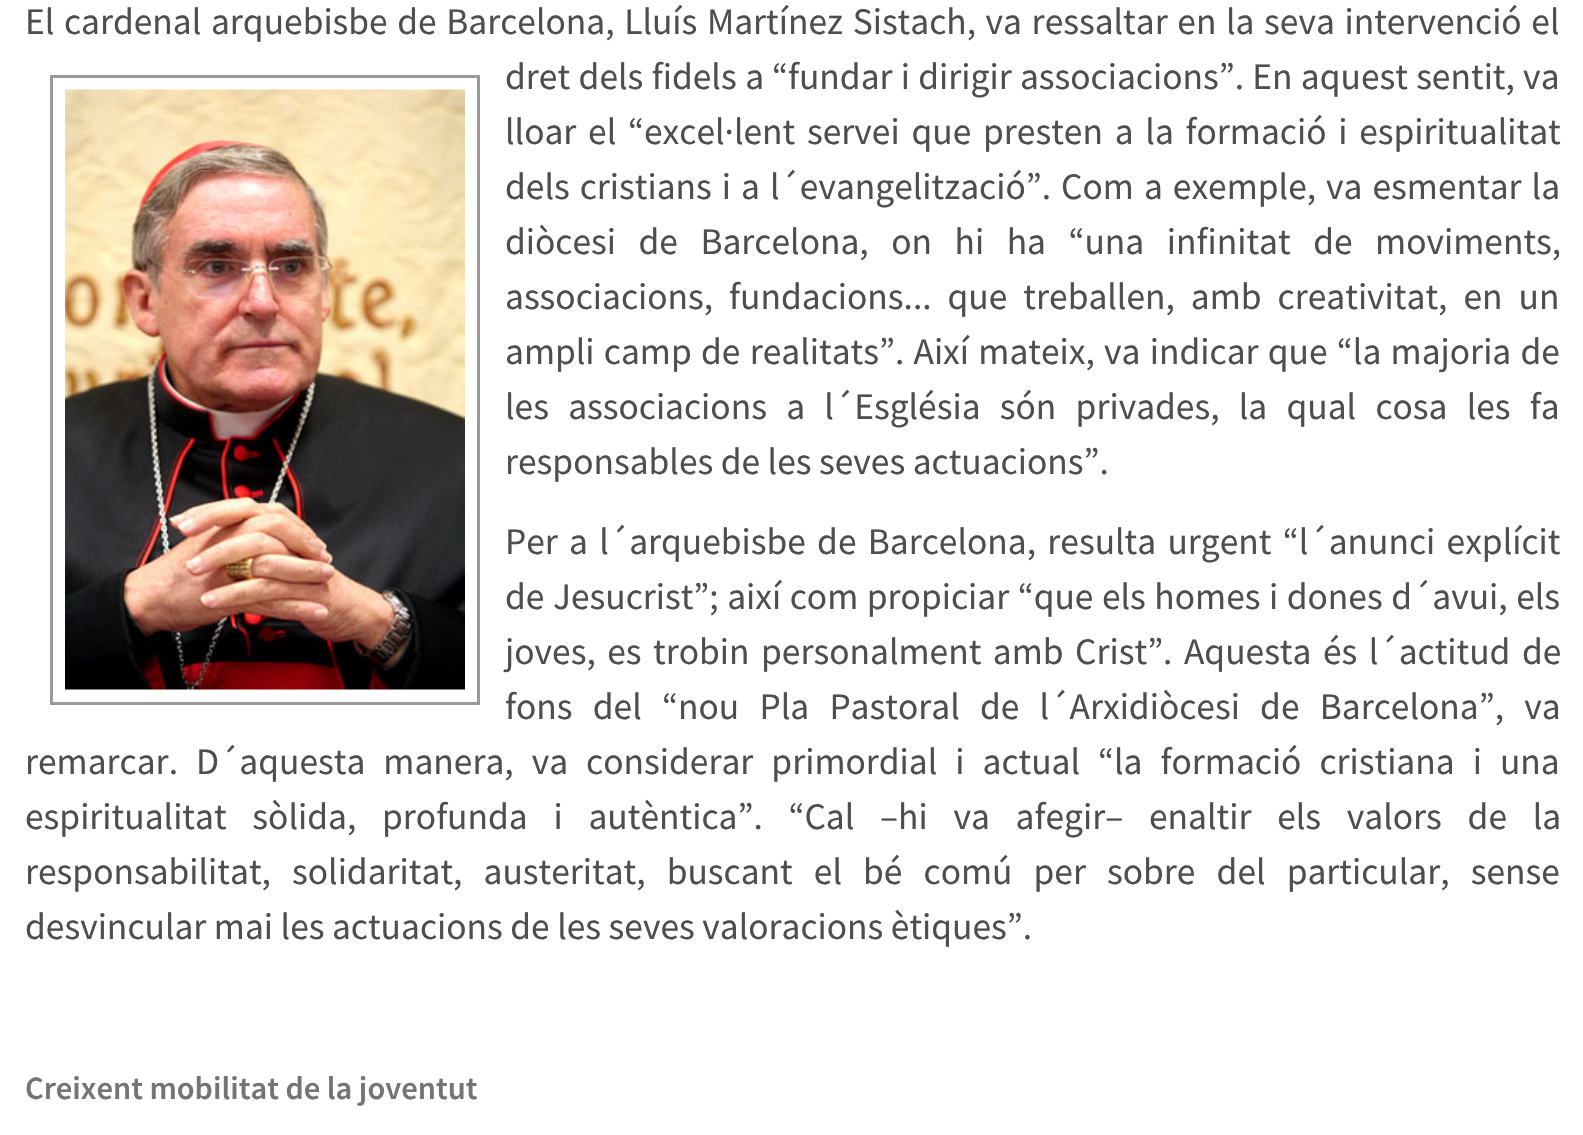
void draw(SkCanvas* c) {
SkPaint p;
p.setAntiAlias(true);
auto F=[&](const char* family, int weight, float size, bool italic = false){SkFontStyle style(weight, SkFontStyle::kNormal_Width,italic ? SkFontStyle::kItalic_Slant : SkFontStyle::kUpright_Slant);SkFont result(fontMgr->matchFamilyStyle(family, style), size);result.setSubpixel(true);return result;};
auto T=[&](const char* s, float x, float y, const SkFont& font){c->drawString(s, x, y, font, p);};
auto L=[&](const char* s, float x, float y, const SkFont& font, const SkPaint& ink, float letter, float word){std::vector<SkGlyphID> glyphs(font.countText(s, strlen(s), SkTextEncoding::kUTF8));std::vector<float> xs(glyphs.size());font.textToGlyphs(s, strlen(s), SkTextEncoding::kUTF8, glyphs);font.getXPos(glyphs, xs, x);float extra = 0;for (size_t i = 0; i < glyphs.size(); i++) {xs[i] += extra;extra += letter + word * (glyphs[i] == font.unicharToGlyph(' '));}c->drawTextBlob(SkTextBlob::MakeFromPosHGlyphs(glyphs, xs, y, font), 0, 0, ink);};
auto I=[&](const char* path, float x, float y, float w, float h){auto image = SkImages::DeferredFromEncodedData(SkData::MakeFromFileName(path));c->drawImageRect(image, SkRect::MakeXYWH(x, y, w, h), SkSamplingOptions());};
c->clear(0xffffffff);
auto f1 = F("Source Sans Pro",400,37.5);
p.setColor(0xff4e4e4e);
L("El cardenal arquebisbe de Barcelona, Lluís Martínez Sistach, va ressaltar en la seva intervenció el",25,34,f1,p,0,2.1);
p.setStroke(true);
p.setStrokeWidth(3);
p.setColor(0xff999999);
c->drawRect(SkRect::MakeXYWH(51.5,76.5,427,627),p);
I("1.png",65,89,400,601);
p.setStroke(false);
p.setColor(0xff4e4e4e);
L("dret dels fidels a",505,89,f1,p,0,1);
L("“fundar i dirigir associacions”. En aquest sentit, va",772,89,f1,p,0,.75);
L("lloar el “excel·lent servei que presten a la formació i espiritualitat",505,144,f1,p,0,4.25);
L("dels cristians i a l´evangelització”. Com a exemple, va esmentar la",505,199,f1,p,0,2.5);
L("diòcesi de Barcelona, on hi ha “una infinitat de moviments,",505,254,f1,p,0,15);
L("associacions, fundacions... que treballen, amb creativitat, en un",505,309,f1,p,0,8.5);
L("ampli camp de realitats”. Així mateix, va indicar que “la majoria de",505,364,f1,p,0,1.75);
L("les associacions a l´Església són privades, la qual cosa les fa",505,419,f1,p,0,11.75);
T("responsables de les seves actuacions”.",505,474,f1);
L("Per a l´arquebisbe de Barcelona, resulta urgent “l´anunci explícit",505,554,f1,p,0,3.75);
L("de Jesucrist”; així com propiciar “que els homes i dones d´avui, els",505,609,f1,p,0,1);
L("joves, es trobin personalment amb Crist”. Aquesta és l´actitud de",505,664,f1,p,0,4);
L("fons del “nou Pla Pastoral de l´Arxidiòcesi de Barcelona”, va",505,719,f1,p,0,12.75);
L("remarcar. D´aquesta manera, va considerar primordial i actual “la formació cristiana i una",25,774,f1,p,0,10.5);
L("espiritualitat sòlida, profunda i autèntica”. “Cal –hi va afegir– enaltir els valors de la",25,829,f1,p,0,18.25);
L("responsabilitat, solidaritat, austeritat, buscant el bé comú per sobre del particular, sense",25,884,f1,p,0,13.6);
T("desvincular mai les actuacions de les seves valoracions ètiques”.",25,939,f1);
auto f2 = F("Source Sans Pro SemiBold",600,32.5);
p.setColor(0xff747474);
T("Creixent mobilitat de la joventut",25,1099,f2);
}
